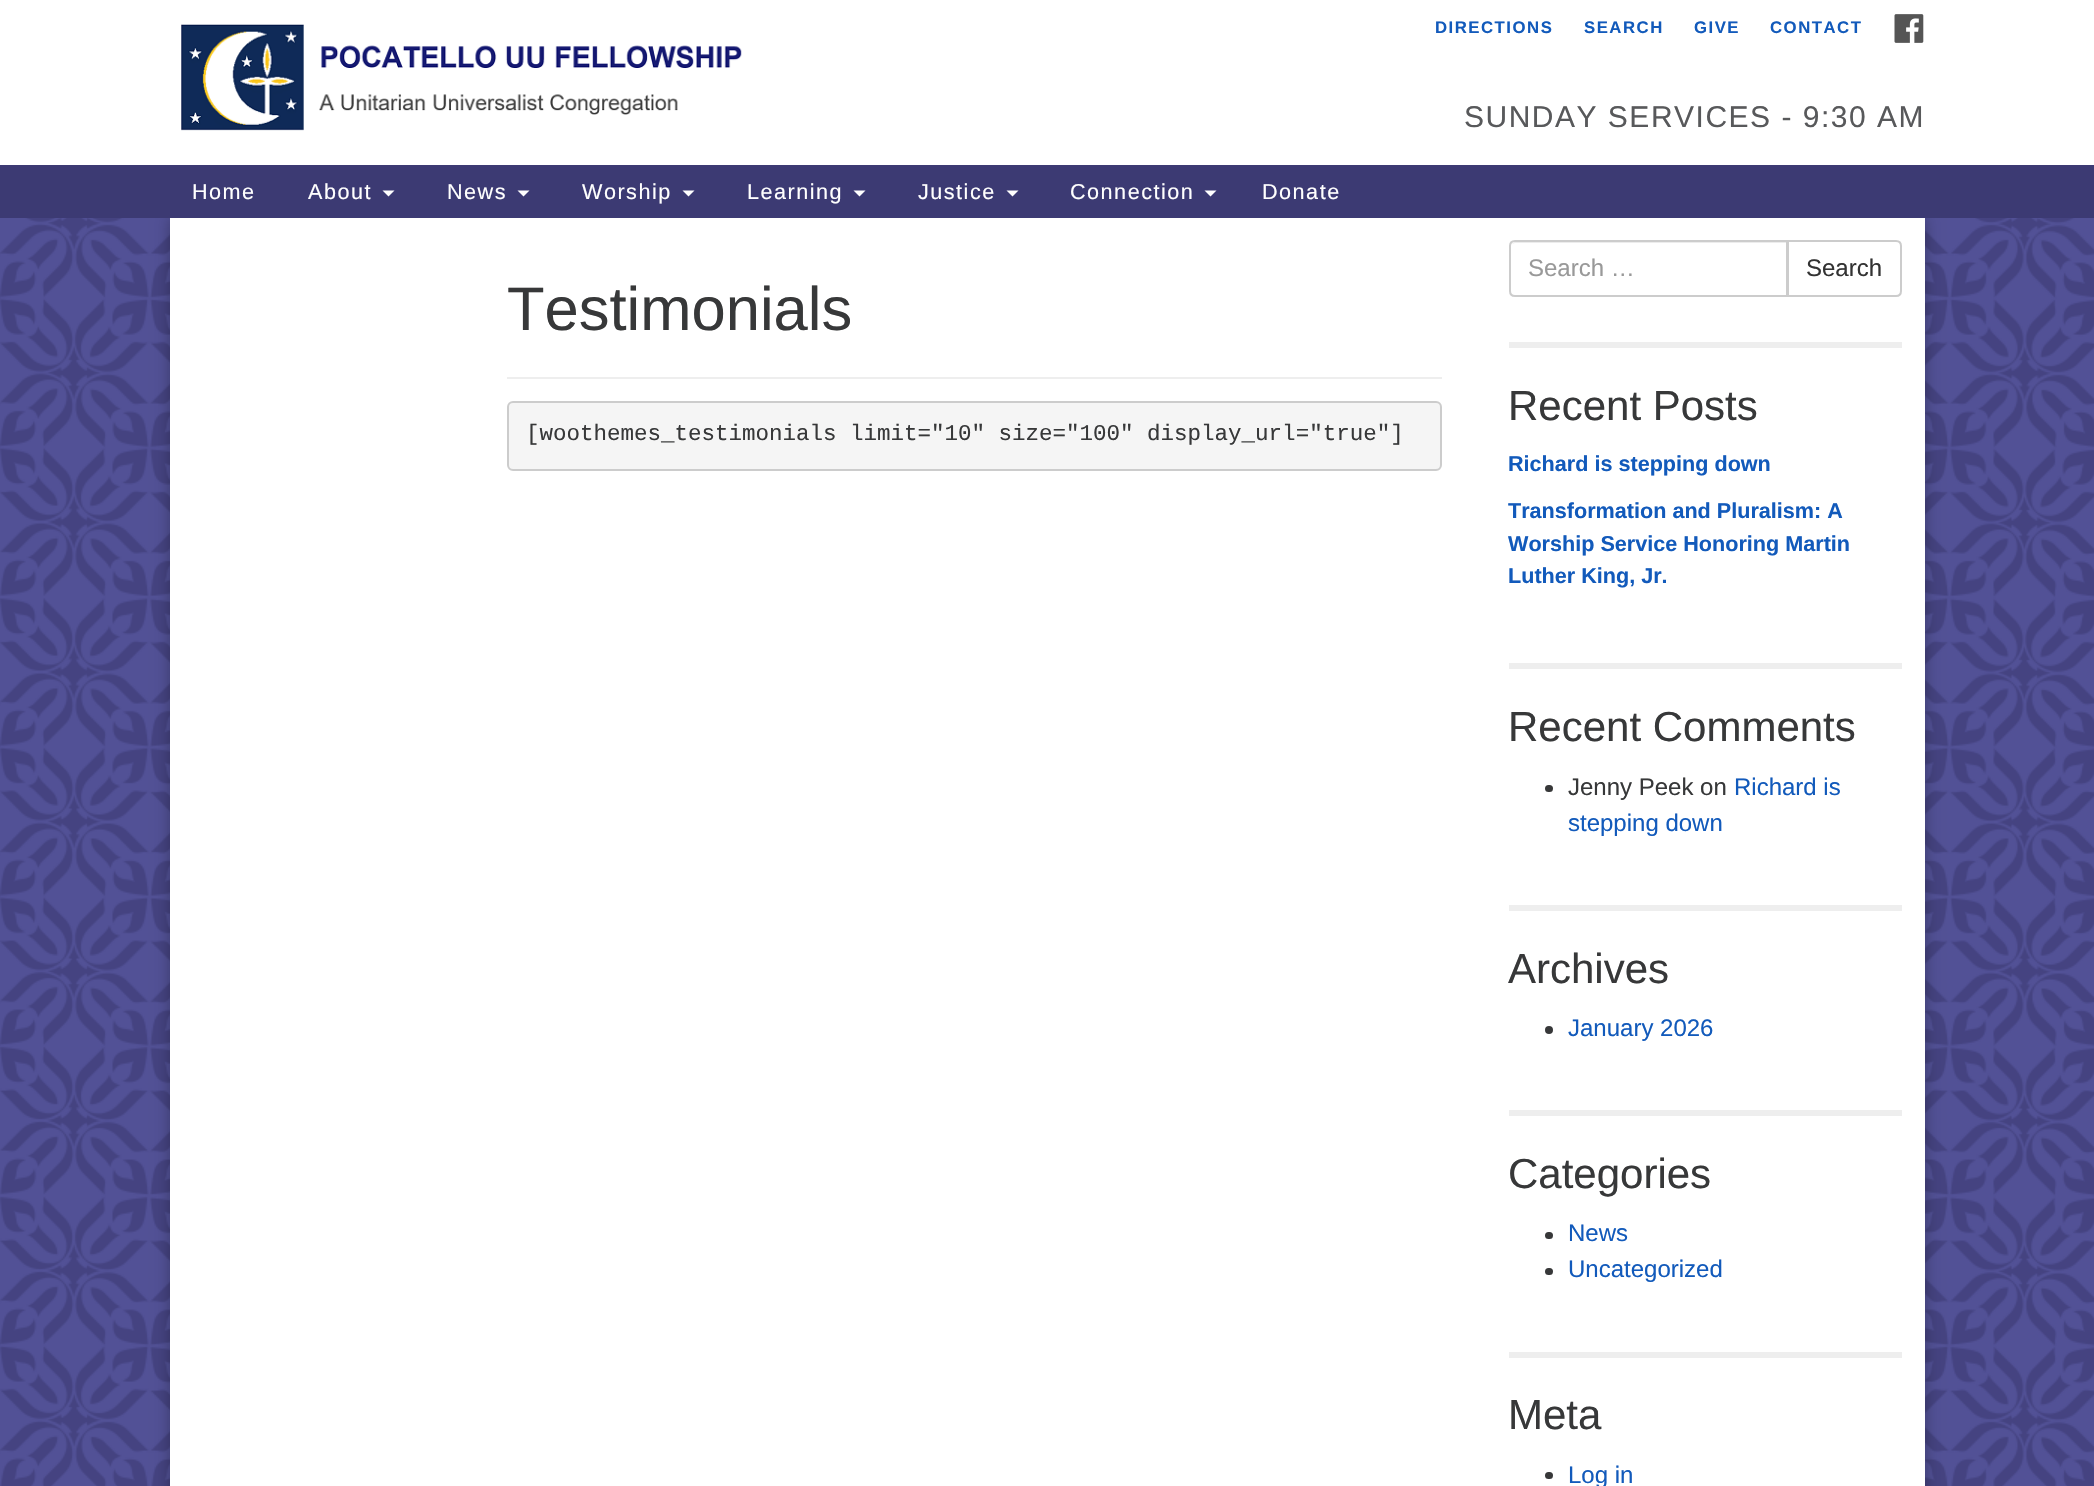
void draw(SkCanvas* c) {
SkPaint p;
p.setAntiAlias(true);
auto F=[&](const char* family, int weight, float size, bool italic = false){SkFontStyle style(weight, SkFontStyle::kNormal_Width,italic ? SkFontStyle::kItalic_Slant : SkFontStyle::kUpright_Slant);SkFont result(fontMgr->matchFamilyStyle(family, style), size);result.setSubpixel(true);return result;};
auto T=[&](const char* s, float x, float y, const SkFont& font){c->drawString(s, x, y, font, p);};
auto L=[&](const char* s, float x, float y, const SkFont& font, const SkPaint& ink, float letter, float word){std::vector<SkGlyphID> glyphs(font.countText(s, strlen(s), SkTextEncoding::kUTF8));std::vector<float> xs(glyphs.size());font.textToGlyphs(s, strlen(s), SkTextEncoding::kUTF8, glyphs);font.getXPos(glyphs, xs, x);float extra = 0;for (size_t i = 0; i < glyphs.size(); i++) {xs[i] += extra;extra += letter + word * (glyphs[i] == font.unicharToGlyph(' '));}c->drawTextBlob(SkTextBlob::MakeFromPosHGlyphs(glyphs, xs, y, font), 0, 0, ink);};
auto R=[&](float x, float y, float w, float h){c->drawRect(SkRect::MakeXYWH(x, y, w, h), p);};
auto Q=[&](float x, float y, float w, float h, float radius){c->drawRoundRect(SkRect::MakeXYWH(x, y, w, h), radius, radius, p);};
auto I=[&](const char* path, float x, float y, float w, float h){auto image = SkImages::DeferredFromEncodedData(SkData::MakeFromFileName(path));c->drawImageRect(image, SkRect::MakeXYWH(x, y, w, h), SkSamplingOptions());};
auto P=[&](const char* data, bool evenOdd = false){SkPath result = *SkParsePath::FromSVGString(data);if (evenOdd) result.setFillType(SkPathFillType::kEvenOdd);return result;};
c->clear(0xffffffff);
I("1.png",0,218,2094,1268);
I("2.png",181,24,561,107);
auto f1 = F("Liberation Sans",700,16.75);
p.setColor(0xff125abb);
L("DIRECTIONS",1435,33,f1,p,1.5,0);
L("SEARCH",1584,33,f1,p,1.5,0);
L("GIVE",1694,33,f1,p,1.5,0);
L("CONTACT",1770,33,f1,p,1.5,0);
I("3.png",1894,14,30,29);
auto f2 = F("Liberation Sans",400,30);
p.setColor(0xff58595b);
L("SUNDAY SERVICES - 9:30 AM",1464,127,f2,p,1.5,0);
p.setColor(0x4d000000);
p.setMaskFilter(SkMaskFilter::MakeBlur(kNormal_SkBlurStyle, 7.5));
c->drawRect(SkRect::MakeXYWH(170,218,1755,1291),p);
p.setMaskFilter(nullptr);
p.setColor(0xff3c3a73);
R(0,165,2094,53);
auto f3 = F("Liberation Sans",400,21.6);
p.setColor(0xffffffff);
L("Home",192,199,f3,p,1.5,0);
L("About",308,199,f3,p,1.5,0);
c->drawPath(P("M382.5 190.5h12l-6 6z"),p);
L("News",447,199,f3,p,1.5,0);
c->drawPath(P("M517.5 190.5h12l-6 6z"),p);
L("Worship",582,199,f3,p,1.5,0);
c->drawPath(P("M682.5 190.5h12l-6 6z"),p);
L("Learning",747,199,f3,p,1.5,0);
c->drawPath(P("M853.5 190.5h12l-6 6z"),p);
L("Justice",918,199,f3,p,1.5,0);
c->drawPath(P("M1006.5 190.5h12l-6 6z"),p);
L("Connection",1070,199,f3,p,1.5,0);
c->drawPath(P("M1204.5 190.5h12l-6 6z"),p);
L("Donate",1262,199,f3,p,1.5,0);
R(170,218,1755,1268);
p.setColor(0xffeeeeee);
R(507,377,935,2);
auto f4 = F("Liberation Sans",400,61.5);
p.setColor(0xff373839);
T("Testimonials",507,330,f4);
p.setColor(0xfff5f5f5);
c->drawRoundRect(SkRect::MakeXYWH(508,402,933,68),5,5,p);
p.setStroke(true);
p.setStrokeWidth(2);
p.setColor(0xffcccccc);
c->drawRoundRect(SkRect::MakeXYWH(508,402,933,68),5,5,p);
auto f5 = F("Liberation Mono",400,22.5);
p.setStroke(false);
p.setColor(0xff373839);
T("[woothemes_testimonials limit=\"10\" size=\"100\" display_url=\"true\"]",526,440,f5);
p.setStroke(true);
p.setColor(0xffcccccc);
c->drawPath(P("M1788 241h108c3 0 5 2 5 5v45c0 3-2 5-5 5h-108z"),p);
p.setStroke(false);
p.setColor(0xffffffff);
c->drawPath(P("M1515 240h273v57h-273c-3.5 0-6-2.5-6-6v-45c0-3.5 2.5-6 6-6z"),p);
p.setColor(0xffececec);
c->drawPath(P("M1515 243h271v53h1v-54h-272l-2 1l-1 1z"),p);
p.setStroke(true);
p.setColor(0xffcccccc);
c->drawPath(P("M1515 241h272v55h-272c-3 0-5-2-5-5v-45c0-3 2-5 5-5z"),p);
auto f6 = F("Liberation Sans",400,24);
p.setStroke(false);
p.setColor(0xff999999);
T("Search …",1528,276,f6);
p.setColor(0xff333333);
T("Search",1806,276,f6);
p.setColor(0xffeeeeee);
R(1509,342,393,6);
auto f7 = F("Liberation Sans",400,42);
p.setColor(0xff373839);
T("Recent Posts",1508,420,f7);
auto f8 = F("Liberation Sans",700,21.6);
p.setColor(0xff125abb);
T("Richard is stepping down",1508,471,f8);
T("Transformation and Pluralism: A",1508,518,f8);
T("Worship Service Honoring Martin",1508,551,f8);
T("Luther King, Jr.",1508,583,f8);
p.setColor(0xffeeeeee);
R(1509,663,393,6);
p.setColor(0xff373839);
T("Recent Comments",1508,741,f7);
Q(1545,785,8,7,3.5);
T("Jenny Peek on",1568,795,f6);
p.setColor(0xff125abb);
T("Richard is",1734,795,f6);
T("stepping down",1568,831,f6);
p.setColor(0xffeeeeee);
R(1509,905,393,6);
p.setColor(0xff373839);
T("Archives",1508,983,f7);
c->drawCircle(1549,1030,4,p);
p.setColor(0xff125abb);
T("January 2026",1568,1036,f6);
p.setColor(0xffeeeeee);
R(1509,1110,393,6);
p.setColor(0xff373839);
T("Categories",1508,1188,f7);
Q(1545,1232,8,7,3.5);
p.setColor(0xff125abb);
T("News",1568,1241,f6);
p.setColor(0xff373839);
Q(1545,1268,8,7,3.5);
p.setColor(0xff125abb);
T("Uncategorized",1568,1277,f6);
p.setColor(0xffeeeeee);
R(1509,1352,393,6);
p.setColor(0xff373839);
T("Meta",1508,1429,f7);
Q(1545,1472,8,7,3.5);
p.setColor(0xff125abb);
T("Log in",1568,1483,f6);
}
